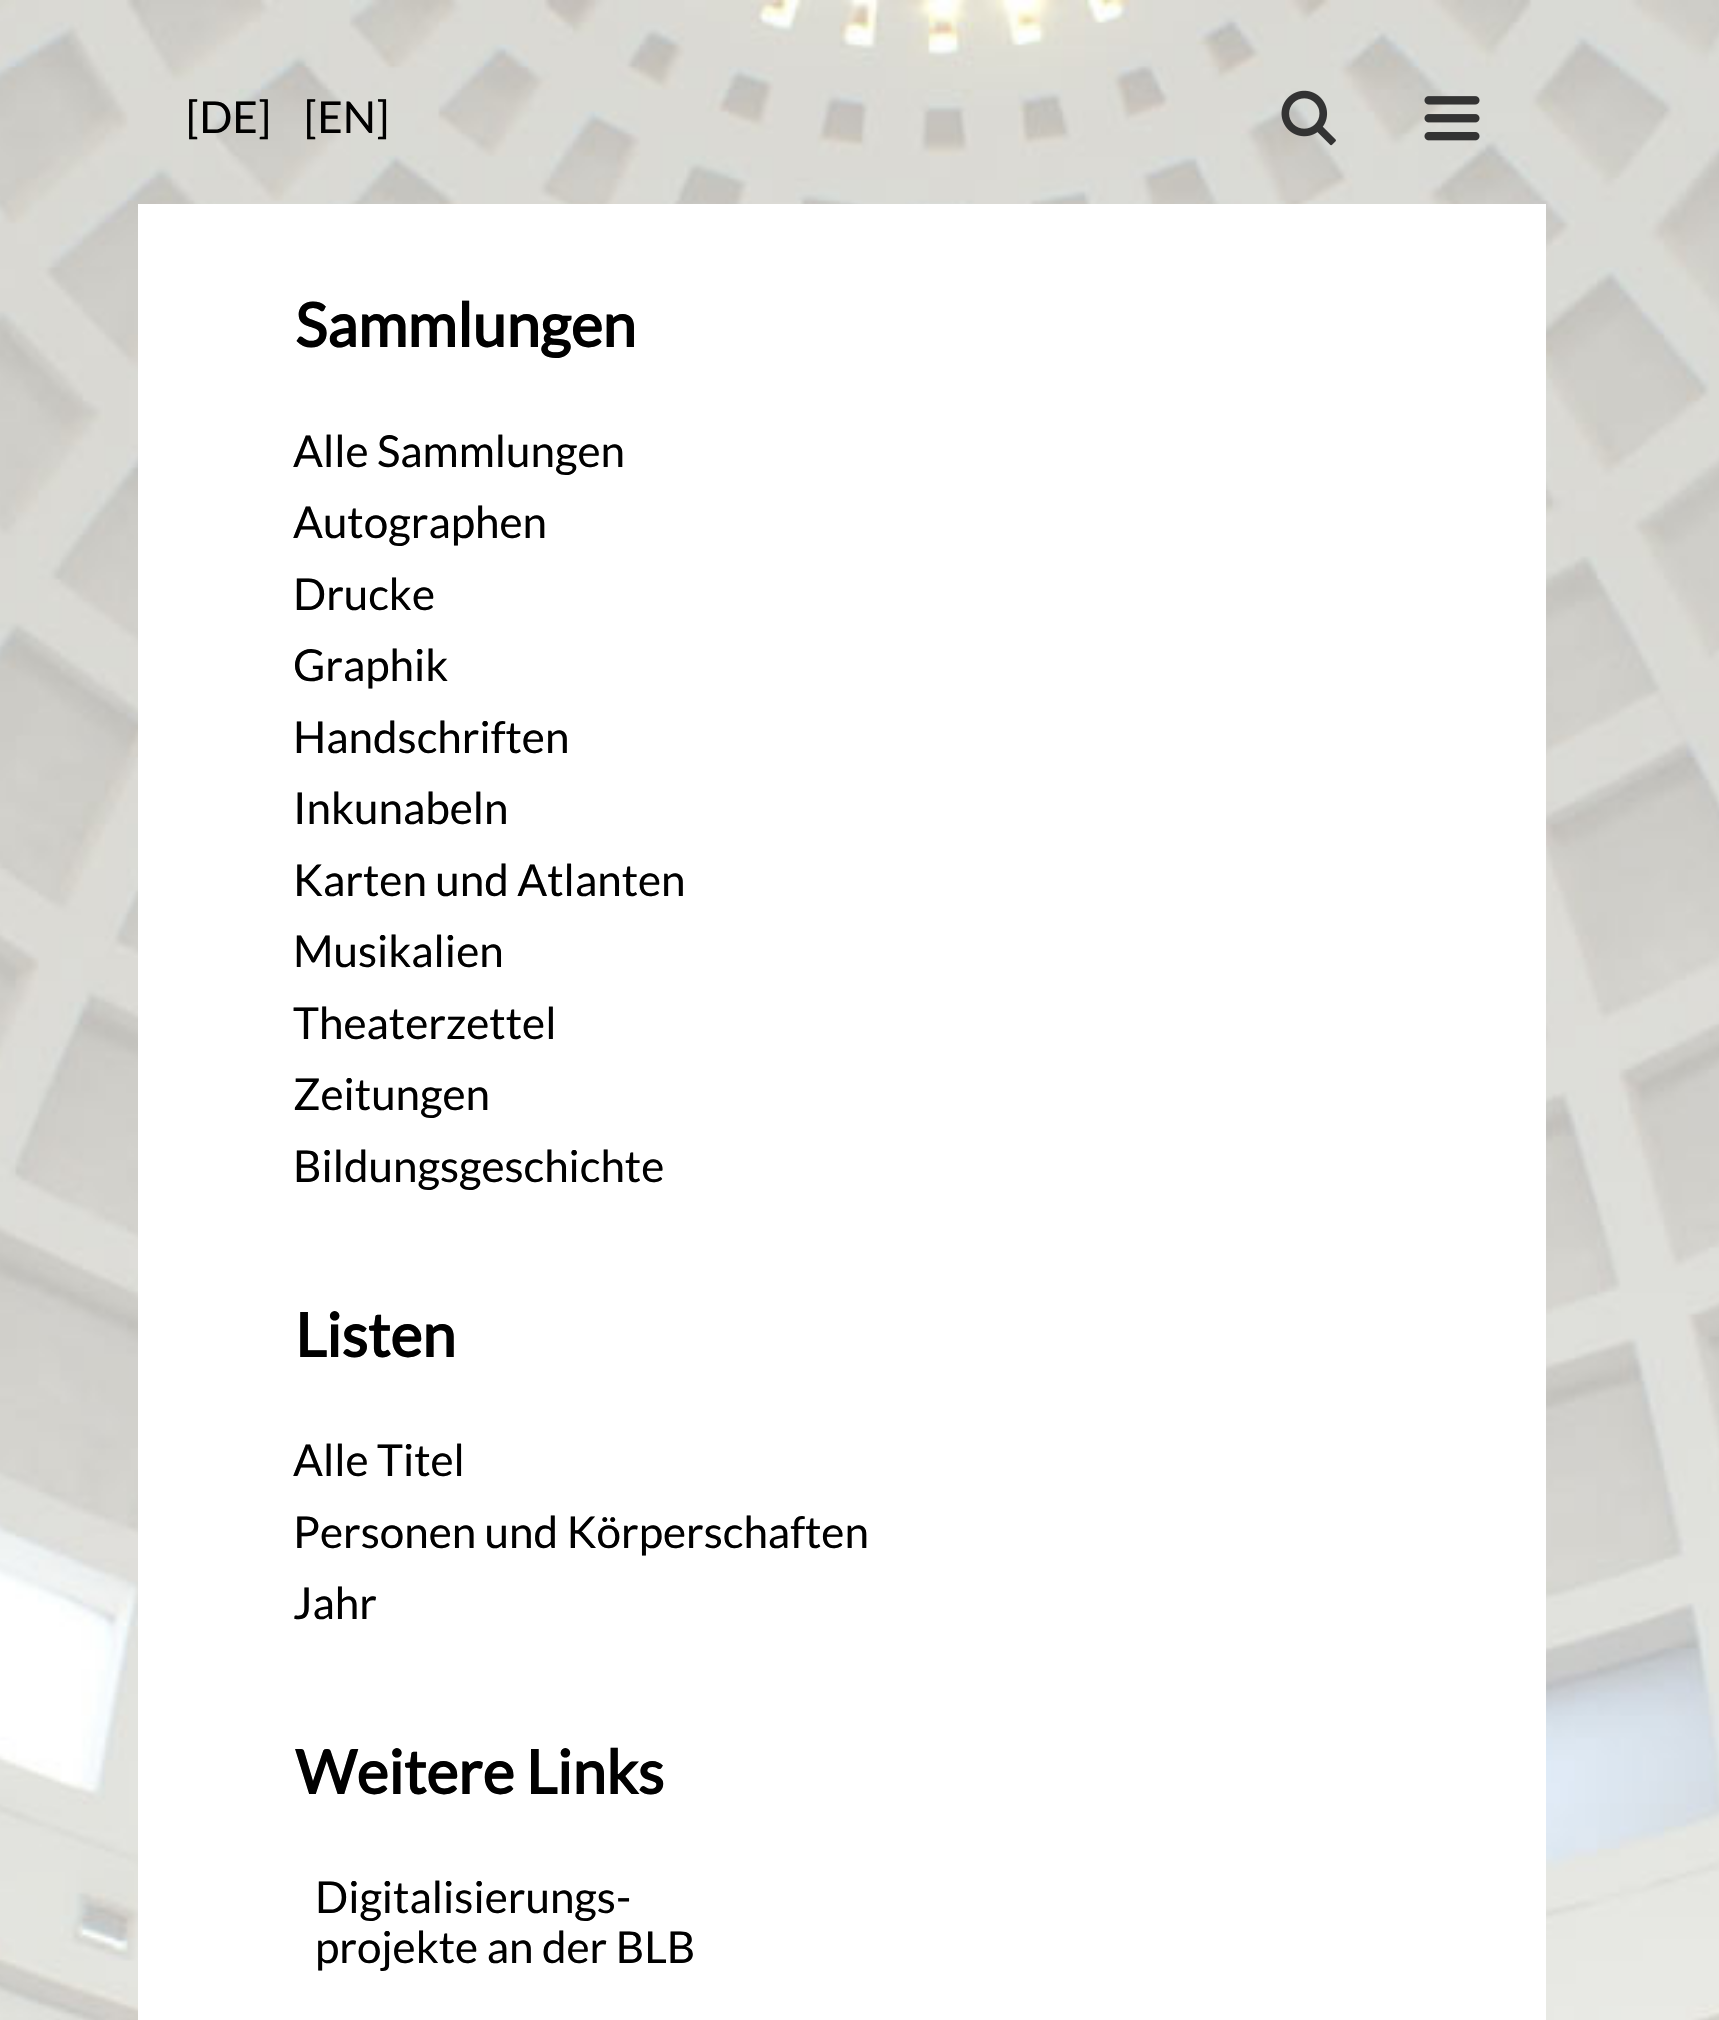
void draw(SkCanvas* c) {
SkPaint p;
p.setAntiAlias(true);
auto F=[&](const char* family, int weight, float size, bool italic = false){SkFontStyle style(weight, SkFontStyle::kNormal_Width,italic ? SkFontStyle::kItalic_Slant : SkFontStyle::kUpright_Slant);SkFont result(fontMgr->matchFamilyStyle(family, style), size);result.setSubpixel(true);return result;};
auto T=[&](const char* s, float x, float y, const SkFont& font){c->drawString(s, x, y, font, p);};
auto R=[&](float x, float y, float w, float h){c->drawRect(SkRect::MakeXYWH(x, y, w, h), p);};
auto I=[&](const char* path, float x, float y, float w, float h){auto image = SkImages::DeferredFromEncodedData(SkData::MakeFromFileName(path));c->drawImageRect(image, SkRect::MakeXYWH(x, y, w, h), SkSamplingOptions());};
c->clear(0xffffffff);
I("1.png",0,0,1719,2020);
auto f1 = F("Lato",400,44);
p.setColor(0xff000000);
T("[DE]",186,133,f1);
T("[EN]",304,133,f1);
I("2.png",1281,90,55,56);
I("3.png",1424,96,56,45);
p.setColor(0xffffffff);
R(138,204,1408,1816);
auto f2 = F("Lato",700,60.5);
p.setColor(0xff000000);
T("Sammlungen",295,347,f2);
T("Alle Sammlungen",293,467,f1);
T("Autographen",293,538,f1);
T("Drucke",293,610,f1);
T("Graphik",293,681,f1);
T("Handschriften",293,753,f1);
T("Inkunabeln",293,824,f1);
T("Karten und Atlanten",293,896,f1);
T("Musikalien",293,967,f1);
T("Theaterzettel",293,1039,f1);
T("Zeitungen",293,1110,f1);
T("Bildungsgeschichte",293,1182,f1);
T("Listen",295,1357,f2);
T("Alle Titel",293,1476,f1);
T("Personen und Körperschaften",293,1548,f1);
T("Jahr",293,1619,f1);
T("Weitere Links",295,1794,f2);
T("Digitalisierungs-",315,1913,f1);
T("projekte an der BLB",315,1963,f1);
}
